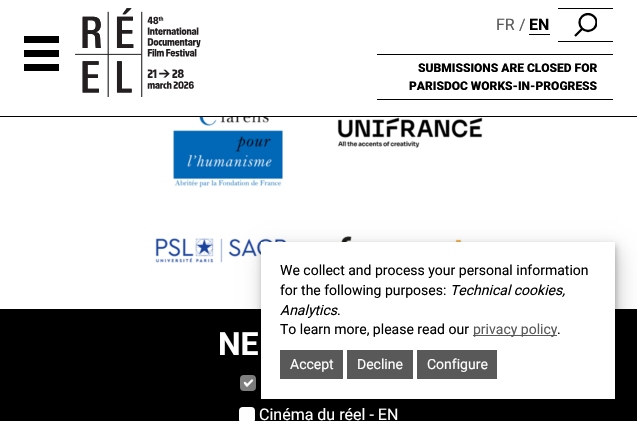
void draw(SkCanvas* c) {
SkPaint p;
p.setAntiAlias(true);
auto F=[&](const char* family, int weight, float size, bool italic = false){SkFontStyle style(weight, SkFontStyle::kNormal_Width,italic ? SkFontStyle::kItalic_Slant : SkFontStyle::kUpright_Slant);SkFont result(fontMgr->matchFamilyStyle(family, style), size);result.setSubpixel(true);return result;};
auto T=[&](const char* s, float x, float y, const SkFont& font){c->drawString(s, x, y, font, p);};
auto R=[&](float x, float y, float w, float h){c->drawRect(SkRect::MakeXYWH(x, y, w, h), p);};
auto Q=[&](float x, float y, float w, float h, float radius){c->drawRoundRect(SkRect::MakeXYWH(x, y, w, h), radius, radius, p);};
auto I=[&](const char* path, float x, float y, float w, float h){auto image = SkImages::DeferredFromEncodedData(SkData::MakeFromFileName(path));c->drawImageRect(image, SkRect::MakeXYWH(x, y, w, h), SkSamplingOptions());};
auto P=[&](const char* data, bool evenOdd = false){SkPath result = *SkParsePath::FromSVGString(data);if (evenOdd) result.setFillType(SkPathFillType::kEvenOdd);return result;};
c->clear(0xffffffff);
p.setColor(0xff000000);
R(24,36,35,7);
R(24,50,35,7);
R(24,64,35,7);
I("1.png",75,8,126,89);
auto f1 = F("Roboto",400,16);
p.setColor(0xff595959);
T("FR",496,30,f1);
T("/",519,30,f1);
auto f2 = F("Roboto",700,16);
p.setColor(0xff000000);
T("EN",529,30,f2);
R(529,34,21,1);
R(558,8,55,1);
c->save();
c->clipRect(SkRect::MakeXYWH(574,13,23,24));
p.setStroke(true);
p.setStrokeWidth(2.3);
c->drawCircle(588,22.5,8.5,p);
c->restore();
p.setStrokeJoin(SkPaint::kRound_Join);
c->drawPath(P("M582.5 28.5l-7.5 7.5"),p);
p.setStroke(false);
R(558,41,55,1);
R(377,54,236,1);
auto f3 = F("Roboto",900,12);
T("SUBMISSIONS ARE CLOSED FOR",418,72,f3);
T("PARISDOC WORKS-IN-PROGRESS",409,90,f3);
R(377,99,236,1);
R(0,116,637,1);
I("4.png",155,238,146,25);
I("5.png",336,236,147,6);
R(0,309,637,112);
p.setColor(0xff808080);
Q(240,375,16,16,4);
p.setStroke(true);
p.setStrokeWidth(2.4);
p.setStrokeCap(SkPaint::kRound_Cap);
p.setColor(0xffffffff);
c->drawPath(P("M245 383l2 2.5l5-5"),p);
p.setStroke(false);
Q(239,407,16,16,4);
p.setColor(0x33000000);
p.setMaskFilter(SkMaskFilter::MakeBlur(kNormal_SkBlurStyle, 10.5));
c->drawRect(SkRect::MakeXYWH(264,250,354,157),p);
p.setMaskFilter(nullptr);
p.setColor(0x40000000);
p.setMaskFilter(SkMaskFilter::MakeBlur(kNormal_SkBlurStyle, 3));
c->drawRect(SkRect::MakeXYWH(262,245,354,157),p);
p.setMaskFilter(nullptr);
p.setColor(0xffffffff);
R(261,242,354,157);
auto f4 = F("Roboto",400,14);
p.setColor(0xff000000);
T("We collect and process your personal information",280,275,f4);
T("for the following purposes:",280,295,f4);
auto f5 = F("Roboto",400,14,true);
T("Technical cookies,",450,295,f5);
T("Analytics",280,315,f5);
T(".",337,315,f4);
T("To learn more, please read our",280,334,f4);
p.setColor(0xff595959);
R(473,335,84,1);
T("privacy policy",473,334,f4);
p.setColor(0xff000000);
T(".",557,334,f4);
p.setColor(0xff595959);
R(280,350,63,29);
p.setColor(0xffffffff);
T("Accept",290,369,f4);
p.setColor(0xff595959);
R(347,350,66,29);
p.setColor(0xffffffff);
T("Decline",357,369,f4);
p.setColor(0xff595959);
R(417,350,80,29);
p.setColor(0xffffffff);
T("Configure",427,369,f4);
I("2.png",173,117,110,71);
I("3.png",337,117,146,31);
auto f6 = F("Roboto",700,32);
T("NE",218,355,f6);
T("Cinéma du réel - EN",259,420,f1);
}
